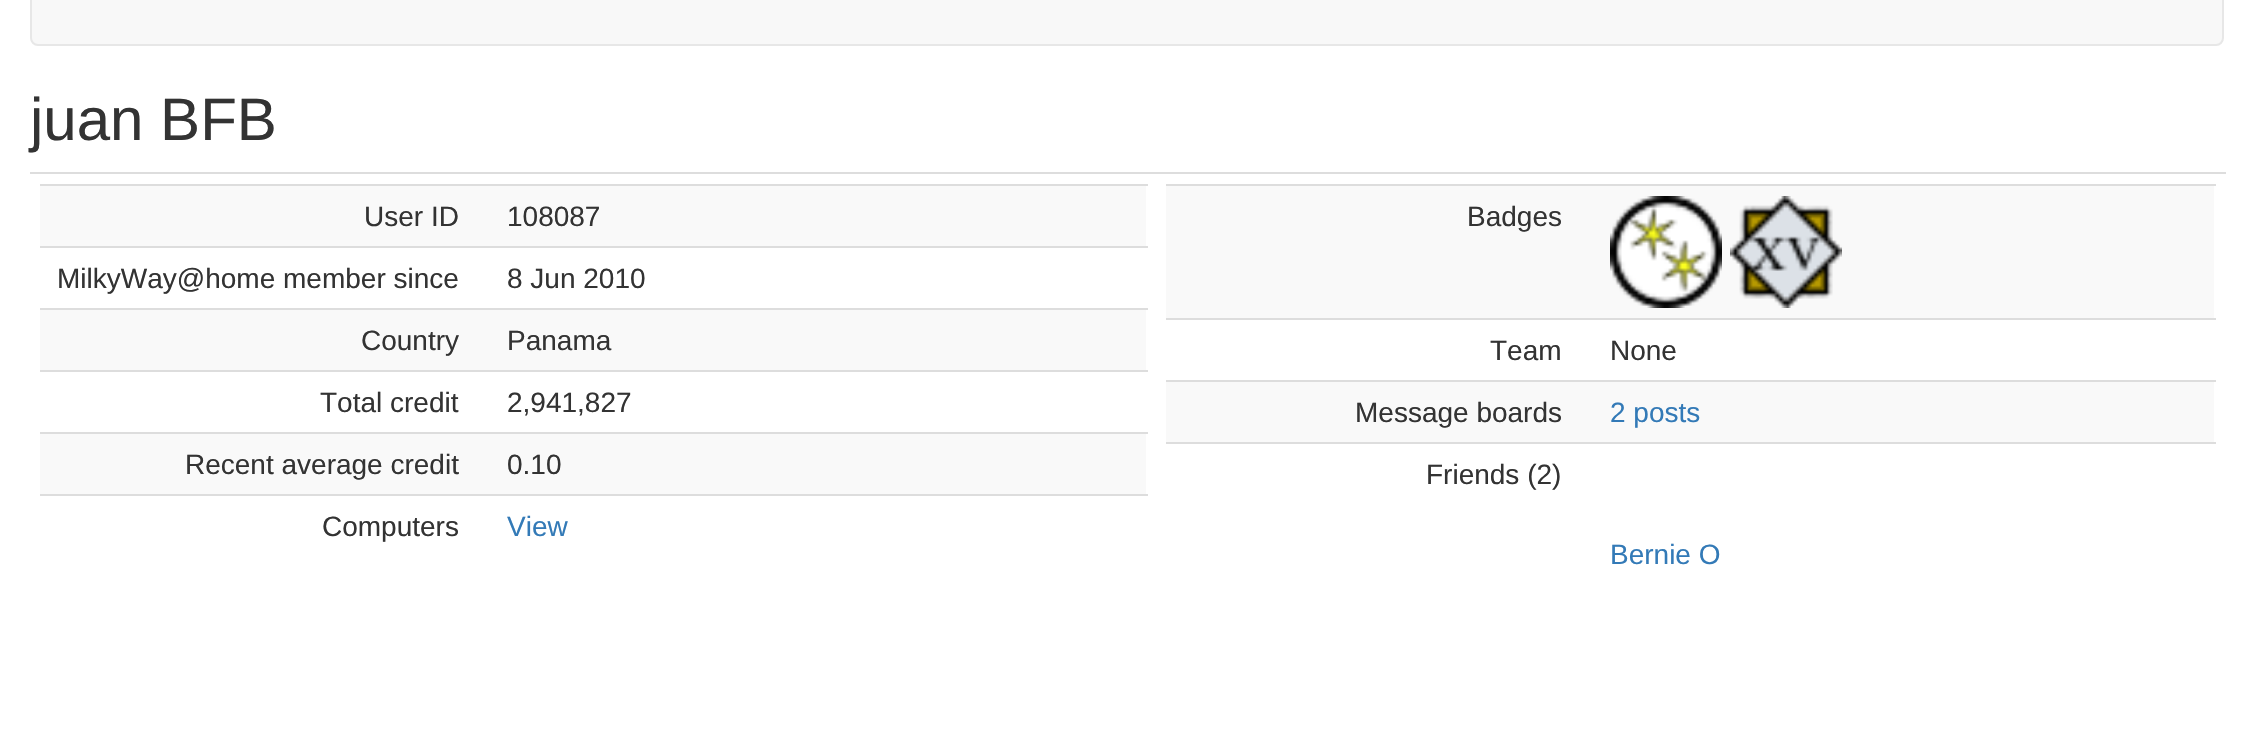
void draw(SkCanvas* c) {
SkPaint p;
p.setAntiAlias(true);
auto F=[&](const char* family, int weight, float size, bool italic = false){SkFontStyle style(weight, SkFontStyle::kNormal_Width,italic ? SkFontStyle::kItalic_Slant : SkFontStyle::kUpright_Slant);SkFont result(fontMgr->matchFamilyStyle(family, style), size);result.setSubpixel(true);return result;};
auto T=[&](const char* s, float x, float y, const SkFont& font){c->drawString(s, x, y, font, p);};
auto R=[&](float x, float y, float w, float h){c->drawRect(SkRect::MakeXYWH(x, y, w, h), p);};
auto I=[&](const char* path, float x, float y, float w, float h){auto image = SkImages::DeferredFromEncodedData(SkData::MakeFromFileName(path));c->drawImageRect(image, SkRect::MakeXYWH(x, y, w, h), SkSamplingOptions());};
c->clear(0xffffffff);
p.setColor(0xfff8f8f8);
c->drawRoundRect(SkRect::MakeXYWH(31,-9,2192,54),7,7,p);
p.setStroke(true);
p.setStrokeWidth(2);
p.setColor(0xffe7e7e7);
c->drawRoundRect(SkRect::MakeXYWH(31,-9,2192,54),7,7,p);
auto f1 = F("Liberation Sans",400,60);
p.setStroke(false);
p.setColor(0xff333333);
T("juan BFB",30,140,f1);
p.setColor(0xfff9f9f9);
R(40,186,1106,60);
auto f2 = F("Liberation Sans",400,28);
p.setColor(0xff333333);
T("User ID",364,226,f2);
p.setColor(0xffdddddd);
R(40,184,1108,2);
p.setColor(0xff333333);
T("108087",507,226,f2);
T("MilkyWay@home member since",57,288,f2);
p.setColor(0xffdddddd);
R(40,246,1108,2);
p.setColor(0xff333333);
T("8 Jun 2010",507,288,f2);
p.setColor(0xfff9f9f9);
R(40,310,1106,60);
p.setColor(0xff333333);
T("Country",361,350,f2);
p.setColor(0xffdddddd);
R(40,308,1108,2);
p.setColor(0xff333333);
T("Panama",507,350,f2);
T("Total credit",320,412,f2);
p.setColor(0xffdddddd);
R(40,370,1108,2);
p.setColor(0xff333333);
T("2,941,827",507,412,f2);
p.setColor(0xfff9f9f9);
R(40,434,1106,60);
p.setColor(0xff333333);
T("Recent average credit",185,474,f2);
p.setColor(0xffdddddd);
R(40,432,1108,2);
p.setColor(0xff333333);
T("0.10",507,474,f2);
T("Computers",322,536,f2);
p.setColor(0xffdddddd);
R(40,494,1108,2);
p.setColor(0xff337ab7);
T("View",507,536,f2);
p.setColor(0xffdddddd);
R(30,172,2196,2);
p.setColor(0xfff9f9f9);
R(1166,186,1048,132);
p.setColor(0xffdddddd);
R(1166,184,1050,2);
I("1.png",1610,196,112,112);
I("2.png",1730,196,112,112);
p.setColor(0xff333333);
T("Badges",1467,226,f2);
T("Team",1490,360,f2);
p.setColor(0xffdddddd);
R(1166,318,1050,2);
p.setColor(0xff333333);
T("None",1610,360,f2);
p.setColor(0xfff9f9f9);
R(1166,382,1048,60);
p.setColor(0xff333333);
T("Message boards",1355,422,f2);
p.setColor(0xffdddddd);
R(1166,380,1050,2);
p.setColor(0xff337ab7);
T("2 posts",1610,422,f2);
p.setColor(0xff333333);
T("Friends (2)",1426,484,f2);
p.setColor(0xffdddddd);
R(1166,442,1050,2);
p.setColor(0xff337ab7);
T("Bernie O",1610,564,f2);
}
